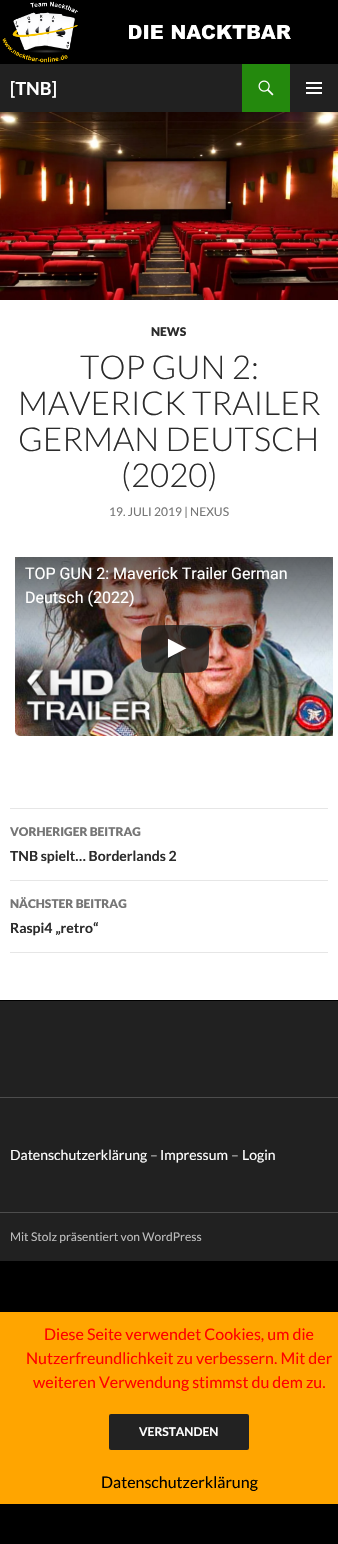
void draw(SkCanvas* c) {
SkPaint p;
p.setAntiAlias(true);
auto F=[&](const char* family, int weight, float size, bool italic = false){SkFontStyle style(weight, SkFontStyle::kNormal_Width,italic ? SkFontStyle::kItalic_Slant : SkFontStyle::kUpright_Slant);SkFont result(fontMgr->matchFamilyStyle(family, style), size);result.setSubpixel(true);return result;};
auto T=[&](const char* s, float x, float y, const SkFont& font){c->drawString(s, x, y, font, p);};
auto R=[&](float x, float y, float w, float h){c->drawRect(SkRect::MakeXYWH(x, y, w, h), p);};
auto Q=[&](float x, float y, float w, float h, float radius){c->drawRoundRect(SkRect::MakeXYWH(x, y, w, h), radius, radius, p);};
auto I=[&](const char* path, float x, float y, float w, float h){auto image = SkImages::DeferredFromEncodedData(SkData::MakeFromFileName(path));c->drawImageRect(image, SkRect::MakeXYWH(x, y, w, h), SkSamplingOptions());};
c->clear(0xff000000);
p.setColor(0xffffffff);
R(0,300,338,700);
I("1.png",0,0,338,64);
p.setColor(0xff212121);
R(0,64,338,48);
auto f1 = F("Lato",700,18);
p.setColor(0xffffffff);
T("[TNB]",10,95,f1);
p.setColor(0xff24890d);
R(242,64,48,48);
I("2.png",258,80,16,16);
I("3.png",306,82,16,12);
I("4.png",0,112,338,188);
auto f2 = F("Lato",900,12);
p.setColor(0xff2b2b2b);
T("NEWS",151,336,f2);
auto f3 = F("Lato",300,33);
T("TOP GUN 2:",80,379,f3);
T("MAVERICK TRAILER",18,415,f3);
T("GERMAN DEUTSCH",18,451,f3);
T("(2020)",121,487,f3);
auto f4 = F("Lato",400,12);
p.setColor(0xff767676);
T("19. JULI 2019 | NEXUS",109,516,f4);
I("5.png",15,557,318,179);
auto f5 = F("Roboto",400,16);
p.setColor(0xffffffff);
T("TOP GUN 2: Maverick Trailer German",25,579,f5);
T("Deutsch (2022)",25,603,f5);
I("6.png",141,625,68,48);
p.setColor(0xffe6e6e6);
R(10,808,318,1);
R(10,880,318,1);
p.setColor(0xff767676);
T("VORHERIGER BEITRAG",10,836,f2);
auto f6 = F("Lato",700,14);
p.setColor(0xff2b2b2b);
T("TNB spielt… Borderlands 2",10,861,f6);
p.setColor(0xffe6e6e6);
R(10,952,318,1);
p.setColor(0xff767676);
T("NÄCHSTER BEITRAG",10,908,f2);
p.setColor(0xff2b2b2b);
T("Raspi4 „retro“",10,933,f6);
p.setColor(0xff212121);
R(0,1001,338,96);
p.setColor(0xff4d4d4d);
R(0,1097,338,1);
p.setColor(0xff212121);
R(0,1098,338,163);
auto f7 = F("Lato",400,14);
p.setColor(0xffffffff);
T("Datenschutzerklärung",10,1160,f7);
p.setColor(0xffbcbcbc);
T("–",150,1160,f7);
p.setColor(0xffffffff);
T("Impressum",160,1160,f7);
p.setColor(0xffbcbcbc);
T("–",231,1160,f7);
p.setColor(0xffffffff);
T("Login",242,1160,f7);
p.setColor(0xff4d4d4d);
R(0,1212,338,1);
p.setColor(0xffbcbcbc);
T("Mit Stolz präsentiert von WordPress",10,1241,f4);
p.setColor(0xffffa500);
R(0,1312,338,192);
auto f8 = F("Lato",400,16);
p.setColor(0xffff0000);
T("Diese Seite verwendet Cookies, um die",44,1340,f8);
T("Nutzerfreundlichkeit zu verbessern. Mit der",26,1364,f8);
T("weiteren Verwendung stimmst du dem zu.",33,1388,f8);
p.setColor(0xff222222);
Q(109,1414,140,36,2);
auto f9 = F("Lato",700,12);
p.setColor(0xffffffff);
T("VERSTANDEN",139,1436,f9);
p.setColor(0xff000000);
T("Datenschutzerklärung",101,1488,f8);
}
